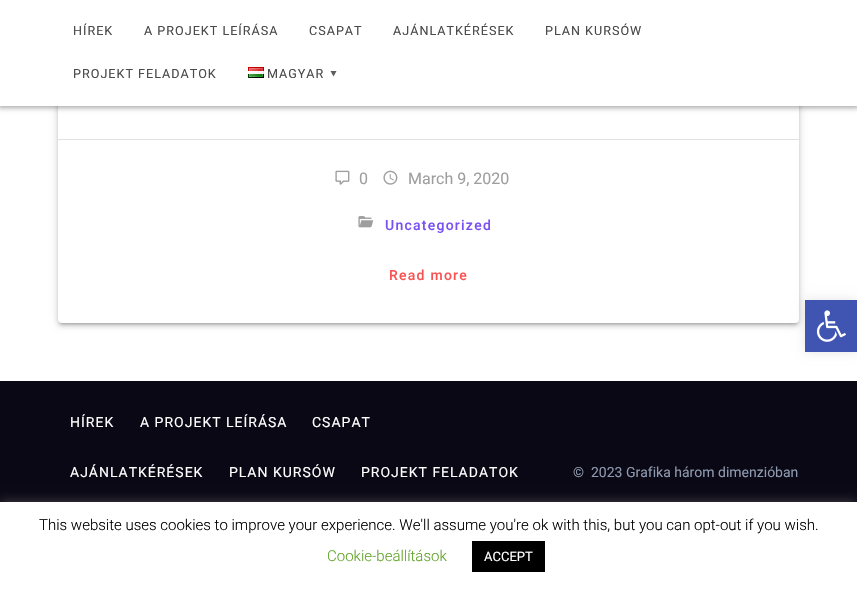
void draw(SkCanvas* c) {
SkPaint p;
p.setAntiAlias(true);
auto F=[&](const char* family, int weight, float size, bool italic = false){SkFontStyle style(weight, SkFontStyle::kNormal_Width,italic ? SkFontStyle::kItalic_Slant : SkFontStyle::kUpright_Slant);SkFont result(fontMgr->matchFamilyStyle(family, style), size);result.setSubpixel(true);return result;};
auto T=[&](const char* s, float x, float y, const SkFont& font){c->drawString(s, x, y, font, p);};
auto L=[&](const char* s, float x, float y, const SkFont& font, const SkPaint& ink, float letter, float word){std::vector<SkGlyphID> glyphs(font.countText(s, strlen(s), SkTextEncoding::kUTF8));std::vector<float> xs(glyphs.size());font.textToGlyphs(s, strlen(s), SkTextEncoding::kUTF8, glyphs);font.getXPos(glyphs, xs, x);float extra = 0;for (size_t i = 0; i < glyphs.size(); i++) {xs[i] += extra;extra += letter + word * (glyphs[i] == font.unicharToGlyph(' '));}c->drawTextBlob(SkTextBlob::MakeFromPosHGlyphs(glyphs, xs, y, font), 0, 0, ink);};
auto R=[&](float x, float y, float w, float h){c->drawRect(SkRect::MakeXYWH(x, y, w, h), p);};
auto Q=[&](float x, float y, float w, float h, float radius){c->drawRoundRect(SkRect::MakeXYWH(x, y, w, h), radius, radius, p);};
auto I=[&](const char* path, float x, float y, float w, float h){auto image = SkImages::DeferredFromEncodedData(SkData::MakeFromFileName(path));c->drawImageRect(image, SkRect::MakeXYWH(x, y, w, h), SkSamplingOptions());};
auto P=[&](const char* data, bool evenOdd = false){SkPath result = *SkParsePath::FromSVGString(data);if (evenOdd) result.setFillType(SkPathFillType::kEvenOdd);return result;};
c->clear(0xffffffff);
p.setColor(0x1f000000);
p.setMaskFilter(SkMaskFilter::MakeBlur(kNormal_SkBlurStyle, 4));
c->drawRoundRect(SkRect::MakeXYWH(58,-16,741,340),4,4,p);
p.setMaskFilter(nullptr);
p.setColor(0x24000000);
p.setMaskFilter(SkMaskFilter::MakeBlur(kNormal_SkBlurStyle, 2));
c->drawRoundRect(SkRect::MakeXYWH(58,-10,741,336),4,4,p);
p.setMaskFilter(nullptr);
p.setColor(0x33000000);
p.setMaskFilter(SkMaskFilter::MakeBlur(kNormal_SkBlurStyle, 1.5));
c->drawRoundRect(SkRect::MakeXYWH(60,-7,737,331),2,2,p);
p.setMaskFilter(nullptr);
p.setColor(0xffffffff);
Q(58,-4,741,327,4);
p.setColor(0x54000000);
p.setMaskFilter(SkMaskFilter::MakeBlur(kNormal_SkBlurStyle, 2.5));
c->drawRect(SkRect::MakeXYWH(-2,-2,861,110),p);
p.setMaskFilter(nullptr);
p.setColor(0xffffffff);
R(0,0,857,106);
auto f1 = F("Roboto",400,12.6);
p.setColor(0xff4a4a4a);
L("HÍREK",73,35,f1,p,1,0);
L("A PROJEKT LEÍRÁSA",144,35,f1,p,1,0);
L("CSAPAT",309,35,f1,p,1,0);
L("AJÁNLATKÉRÉSEK",393,35,f1,p,1,0);
L("PLAN KURSÓW",545,35,f1,p,1,0);
L("PROJEKT FELADATOK",73,78,f1,p,1,0);
I("1.png",248,67,16,11);
L("MAGYAR",267,78,f1,p,1,0);
p.setColor(0xff5c5c5c);
c->drawPath(P("M330.5 71l3 5.5l3-5.5z"),p);
p.setColor(0xffe0e1e1);
R(58,139,741,1);
I("2.png",335,170,15,15);
auto f2 = F("Roboto",400,16);
p.setColor(0xff9e9e9e);
T("0",359,184,f2);
I("3.png",383,170,15,15);
T("March 9, 2020",408,184,f2);
I("4.png",358,216,16,12);
auto f3 = F("Roboto",500,14);
p.setColor(0xff7950f2);
L("Uncategorized",385,230,f3,p,1.25,0);
p.setColor(0xfffa5252);
L("Read more",389,280,f3,p,1.25,0);
p.setColor(0x1a000000);
p.setMaskFilter(SkMaskFilter::MakeBlur(kNormal_SkBlurStyle, 5));
c->drawRect(SkRect::MakeXYWH(805,300,52,52),p);
p.setMaskFilter(nullptr);
p.setColor(0xff4054b2);
R(805,300,52,52);
I("5.png",816,310,30,32);
p.setColor(0xff0b0815);
R(0,381,857,121);
auto f4 = F("Roboto",400,14);
p.setColor(0xffffffff);
L("HÍREK",70,427,f4,p,1,0);
L("A PROJEKT LEÍRÁSA",140,427,f4,p,1,0);
L("CSAPAT",312,427,f4,p,1,0);
L("AJÁNLATKÉRÉSEK",70,477,f4,p,1,0);
L("PLAN KURSÓW",229,477,f4,p,1,0);
L("PROJEKT FELADATOK",361,477,f4,p,1,0);
p.setColor(0xff8d99ae);
T("©  2023 Grafika három dimenzióban",573,477,f4);
p.setColor(0x4dacabab);
p.setMaskFilter(SkMaskFilter::MakeBlur(kNormal_SkBlurStyle, 5));
c->drawRect(SkRect::MakeXYWH(0,501,857,87),p);
p.setMaskFilter(nullptr);
p.setColor(0xffffffff);
R(0,502,857,87);
auto f5 = F("Roboto",300,15);
p.setColor(0xff000000);
T("This website uses cookies to improve your experience. We'll assume you're ok with this, but you can opt-out if you wish.",39,530,f5);
p.setColor(0xff62a329);
T("Cookie-beállítások",327,561,f5);
p.setColor(0xff000000);
R(472,541,73,31);
auto f6 = F("Roboto",400,13);
p.setColor(0xffffffff);
T("ACCEPT",484,561,f6);
}
